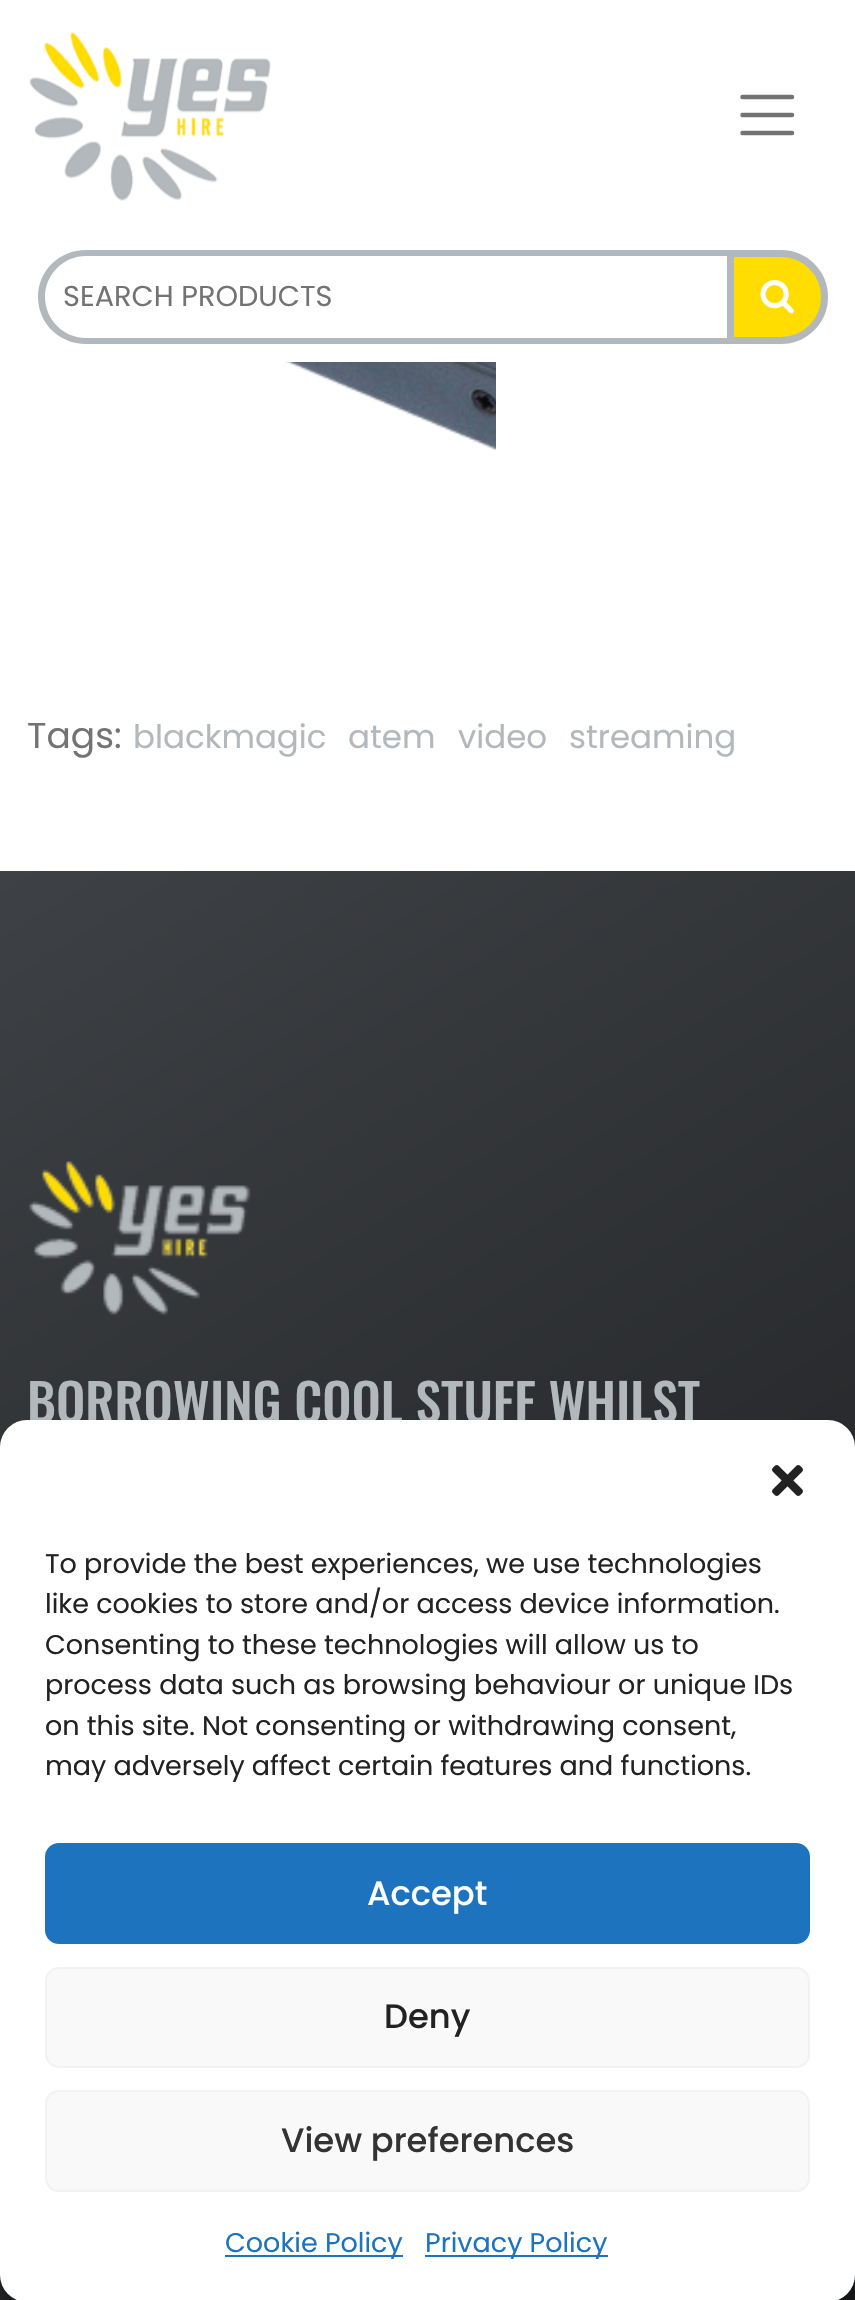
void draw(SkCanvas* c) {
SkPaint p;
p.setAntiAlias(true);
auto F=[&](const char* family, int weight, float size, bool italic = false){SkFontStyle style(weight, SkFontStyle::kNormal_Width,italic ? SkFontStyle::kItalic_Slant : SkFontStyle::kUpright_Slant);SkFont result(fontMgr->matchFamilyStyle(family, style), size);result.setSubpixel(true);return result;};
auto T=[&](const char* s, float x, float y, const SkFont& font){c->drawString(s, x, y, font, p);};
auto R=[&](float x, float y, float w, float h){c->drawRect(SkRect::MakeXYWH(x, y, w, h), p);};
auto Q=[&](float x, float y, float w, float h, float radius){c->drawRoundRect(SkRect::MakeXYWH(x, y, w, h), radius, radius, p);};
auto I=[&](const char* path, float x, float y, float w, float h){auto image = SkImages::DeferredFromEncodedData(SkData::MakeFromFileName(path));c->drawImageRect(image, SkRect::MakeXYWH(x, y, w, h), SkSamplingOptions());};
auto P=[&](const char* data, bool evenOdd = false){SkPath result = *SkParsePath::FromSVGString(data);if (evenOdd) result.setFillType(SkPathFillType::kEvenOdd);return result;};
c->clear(0xffffffff);
I("1.png",29,31,242,170);
p.setStroke(true);
p.setStrokeWidth(4.5);
p.setStrokeCap(SkPaint::kRound_Cap);
p.setColor(0xff737373);
c->drawPath(P("M742.5 97h49.5m-49.5 18h49.5m-49.5 18h49.5"),p);
p.setStroke(false);
p.setColor(0xffb3b8bc);
c->drawPath(P("M86 250h643v94h-643c-27 0-48-21-48-47c0-26 21-47 48-47zm0 6h643v82h-643c-23 0-41-19-41-41c0-22 18-41 41-41z",true),p);
auto f1 = F("Poppins",400,28.75);
p.setColor(0xff737373);
T("SEARCH PRODUCTS",63,306,f1);
p.setColor(0xffffdd00);
c->drawPath(P("M730.5 253.5h50.5c24 0 43.5 19.5 43.5 43.5c0 24-19.5 43.5-43.5 43.5h-50.5z"),p);
p.setStroke(true);
p.setStrokeWidth(7);
p.setStrokeCap(SkPaint::kButt_Cap);
p.setColor(0xffb3b8bc);
c->drawPath(P("M730.5 253.5h50.5c24 0 43.5 19.5 43.5 43.5c0 24-19.5 43.5-43.5 43.5h-50.5z"),p);
I("2.png",760,280,34,34);
I("3.png",138,362,358,89);
auto f2 = F("Poppins",400,36);
p.setStroke(false);
p.setColor(0xff737373);
T("Tags:",27,748,f2);
auto f3 = F("Poppins",400,32.5);
p.setColor(0xffb3b8bc);
T("blackmagic",133,748,f3);
T("atem",348,748,f3);
T("video",458,748,f3);
T("streaming",569,748,f3);
{
const SkColor colors[] = {0xff000000,0xff3e4145};
const float stops[] = {0,1};
const SkPoint ends[] = {{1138,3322}, {-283,1048}};
p.setShader(SkGradientShader::MakeLinear(ends, colors, stops, 2, SkTileMode::kClamp));
p.setAlpha(255);
}
R(0,871,855,1429);
I("4.png",29,1161,222,154);
auto f4 = F("Oswald",500,52);
p.setShader(nullptr);
p.setColor(0xffb3b8bc);
T("BORROWING COOL STUFF WHILST",27,1423,f4);
p.setColor(0x3b000000);
p.setMaskFilter(SkMaskFilter::MakeBlur(kNormal_SkBlurStyle, 7));
c->drawRoundRect(SkRect::MakeXYWH(0,1433,855,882),27,27,p);
p.setMaskFilter(nullptr);
p.setColor(0xffffffff);
Q(0,1420,855,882,27);
I("5.png",772,1465,31,31);
auto f5 = F("Poppins",400,27);
p.setColor(0xff222222);
T("To provide the best experiences, we use technologies",45,1573,f5);
T("like cookies to store and/or access device information.",45,1613,f5);
T("Consenting to these technologies will allow us to",45,1654,f5);
T("process data such as browsing behaviour or unique IDs",45,1694,f5);
T("on this site. Not consenting or withdrawing consent,",45,1735,f5);
T("may adversely affect certain features and functions.",45,1775,f5);
p.setColor(0xff1e73be);
c->drawRoundRect(SkRect::MakeXYWH(46,1844,763,99),13,13,p);
p.setStroke(true);
p.setStrokeWidth(2);
c->drawRoundRect(SkRect::MakeXYWH(46,1844,763,99),13,13,p);
auto f6 = F("Poppins",500,33.75);
p.setStroke(false);
p.setColor(0xffffffff);
T("Accept",367,1905,f6);
p.setColor(0xfff9f9f9);
c->drawRoundRect(SkRect::MakeXYWH(46,1968,763,99),13,13,p);
p.setStroke(true);
p.setColor(0xfff2f2f2);
c->drawRoundRect(SkRect::MakeXYWH(46,1968,763,99),13,13,p);
p.setStroke(false);
p.setColor(0xff222222);
T("Deny",384,2028,f6);
p.setColor(0xfff9f9f9);
c->drawRoundRect(SkRect::MakeXYWH(46,2091,763,100),13,13,p);
p.setStroke(true);
p.setColor(0xfff2f2f2);
c->drawRoundRect(SkRect::MakeXYWH(46,2091,763,100),13,13,p);
p.setStroke(false);
p.setColor(0xff333333);
T("View preferences",281,2152,f6);
p.setColor(0xff1e73be);
R(225,2255,178,2);
T("Cookie Policy",225,2252,f5);
R(425,2255,183,2);
T("Privacy Policy",425,2252,f5);
}
